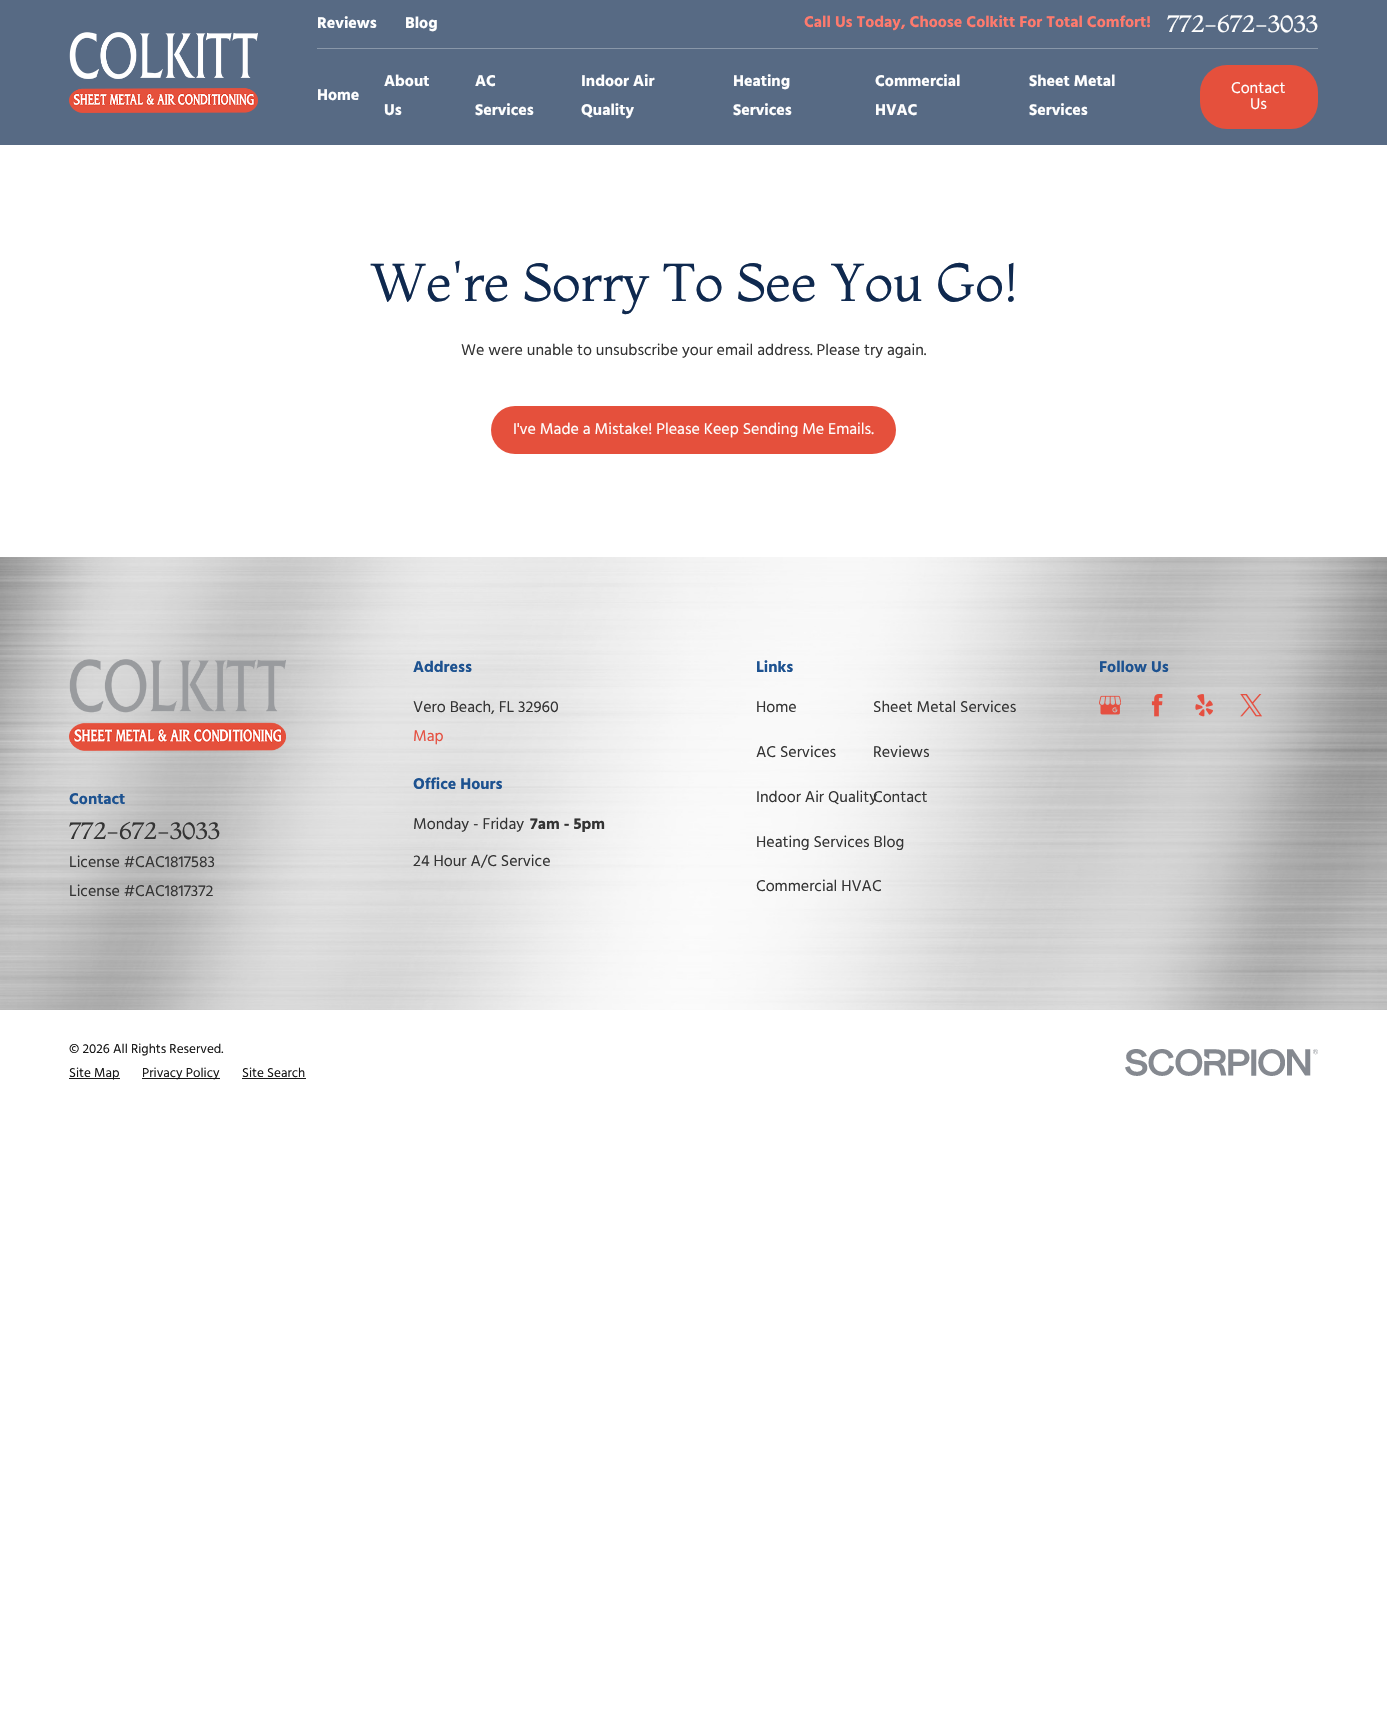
void draw(SkCanvas* c) {
SkPaint p;
p.setAntiAlias(true);
auto F=[&](const char* family, int weight, float size, bool italic = false){SkFontStyle style(weight, SkFontStyle::kNormal_Width,italic ? SkFontStyle::kItalic_Slant : SkFontStyle::kUpright_Slant);SkFont result(fontMgr->matchFamilyStyle(family, style), size);result.setSubpixel(true);return result;};
auto T=[&](const char* s, float x, float y, const SkFont& font){c->drawString(s, x, y, font, p);};
auto R=[&](float x, float y, float w, float h){c->drawRect(SkRect::MakeXYWH(x, y, w, h), p);};
auto Q=[&](float x, float y, float w, float h, float radius){c->drawRoundRect(SkRect::MakeXYWH(x, y, w, h), radius, radius, p);};
auto I=[&](const char* path, float x, float y, float w, float h){auto image = SkImages::DeferredFromEncodedData(SkData::MakeFromFileName(path));c->drawImageRect(image, SkRect::MakeXYWH(x, y, w, h), SkSamplingOptions());};
c->clear(0xffffffff);
p.setColor(0xff576a84);
R(0,0,1387,145);
I("1.png",69,32,189,81);
p.setColor(0xff8997a9);
R(317,48,1001,1);
auto f1 = F("Hind",700,16);
p.setColor(0xffffffff);
T("Reviews",317,28,f1);
T("Blog",405,28,f1);
p.setColor(0xffff7a6d);
T("Call Us Today, Choose Colkitt For Total Comfort!",804,27,f1);
auto f2 = F("Montaga",400,24);
p.setColor(0xffffffff);
T("772-672-3033",1167,32,f2);
T("Home",317,100,f1);
T("About",384,86,f1);
T("Us",384,115,f1);
T("AC",475,86,f1);
T("Services",475,115,f1);
T("Indoor Air",581,86,f1);
T("Quality",581,115,f1);
T("Heating",733,86,f1);
T("Services",733,115,f1);
T("Commercial",875,86,f1);
T("HVAC",875,115,f1);
T("Sheet Metal",1029,86,f1);
T("Services",1029,115,f1);
p.setColor(0xffe5503c);
Q(1200,65,118,64,27);
auto f3 = F("Hind",400,16);
p.setColor(0xffffffff);
T("Contact",1231,93,f3);
T("Us",1250,109,f3);
auto f4 = F("Montaga",400,53.1);
p.setColor(0xff0f294f);
T("We're Sorry To See You Go!",370,301,f4);
p.setColor(0xff343434);
T("We were unable to unsubscribe your email address. Please try again.",461,355,f3);
p.setColor(0xffe5503c);
Q(491,406,405,48,24);
p.setColor(0xffffffff);
T("I've Made a Mistake! Please Keep Sending Me Emails.",513,434,f3);
I("2.png",0,557,1387,453);
I("3.png",69,659,217,92);
p.setColor(0xff1d5290);
T("Contact",69,804,f1);
p.setColor(0xff343434);
T("772-672-3033",69,839,f2);
T("License #CAC1817583",69,867,f3);
T("License #CAC1817372",69,896,f3);
p.setColor(0xff1d5290);
T("Address",413,672,f1);
p.setColor(0xff343434);
T("Vero Beach, FL 32960",413,712,f3);
p.setColor(0xffe55041);
T("Map",413,741,f3);
p.setColor(0xff1d5290);
T("Office Hours",413,789,f1);
p.setColor(0xff343434);
T("Monday - Friday",413,829,f3);
T("7am - 5pm",530,829,f1);
T("24 Hour A/C Service",413,866,f3);
p.setColor(0xff1d5290);
T("Links",756,672,f1);
p.setColor(0xff343434);
T("Home",756,712,f3);
T("Sheet Metal Services",873,712,f3);
T("AC Services",756,757,f3);
T("Reviews",873,757,f3);
T("Indoor Air Quality",756,802,f3);
T("Contact",873,802,f3);
T("Heating Services Blog",756,847,f3);
T("Commercial HVAC",756,891,f3);
p.setColor(0xff1d5290);
T("Follow Us",1099,672,f1);
I("4.png",1099,695,22,20);
I("5.png",1151,694,12,23);
I("6.png",1195,694,18,23);
I("7.png",1240,694,22,23);
auto f5 = F("Hind",400,13.25);
p.setColor(0xff191919);
T("© 2026 All Rights Reserved.",69,1053,f5);
R(69,1078,51,1);
T("Site Map",69,1077,f5);
R(142,1078,78,1);
T("Privacy Policy",142,1077,f5);
T("Site Search",242,1077,f5);
R(242,1078,64,1);
I("8.png",1125,1049,193,27);
}
